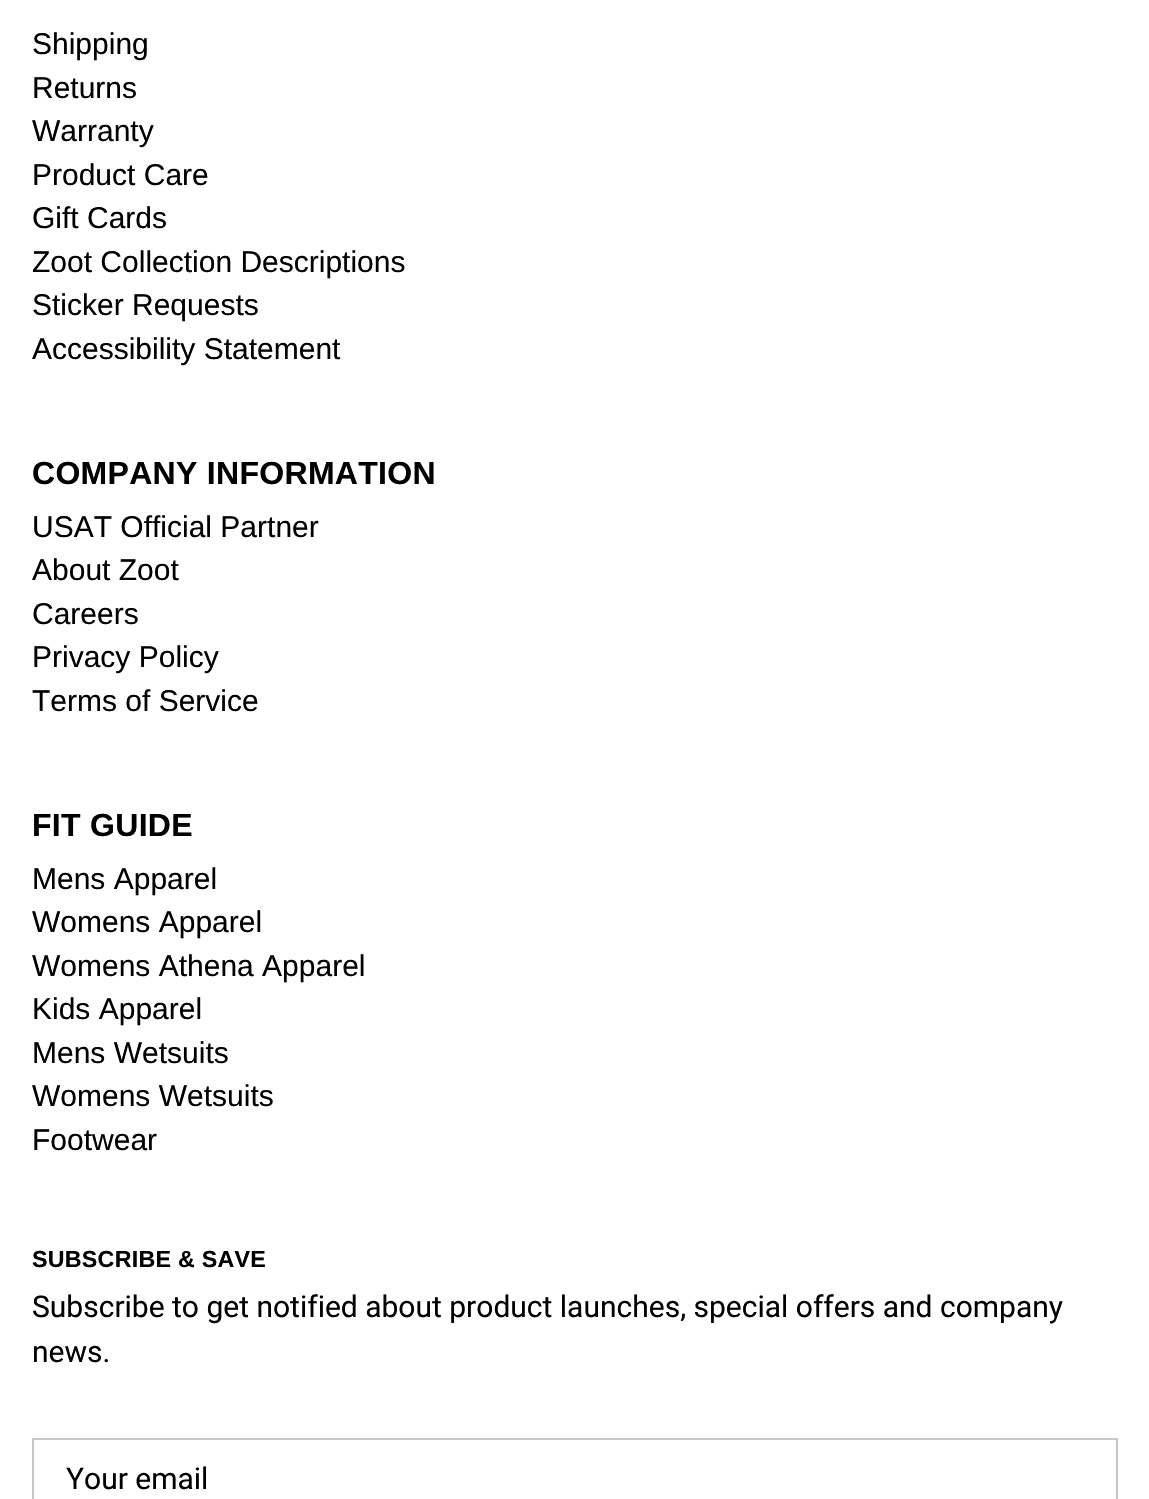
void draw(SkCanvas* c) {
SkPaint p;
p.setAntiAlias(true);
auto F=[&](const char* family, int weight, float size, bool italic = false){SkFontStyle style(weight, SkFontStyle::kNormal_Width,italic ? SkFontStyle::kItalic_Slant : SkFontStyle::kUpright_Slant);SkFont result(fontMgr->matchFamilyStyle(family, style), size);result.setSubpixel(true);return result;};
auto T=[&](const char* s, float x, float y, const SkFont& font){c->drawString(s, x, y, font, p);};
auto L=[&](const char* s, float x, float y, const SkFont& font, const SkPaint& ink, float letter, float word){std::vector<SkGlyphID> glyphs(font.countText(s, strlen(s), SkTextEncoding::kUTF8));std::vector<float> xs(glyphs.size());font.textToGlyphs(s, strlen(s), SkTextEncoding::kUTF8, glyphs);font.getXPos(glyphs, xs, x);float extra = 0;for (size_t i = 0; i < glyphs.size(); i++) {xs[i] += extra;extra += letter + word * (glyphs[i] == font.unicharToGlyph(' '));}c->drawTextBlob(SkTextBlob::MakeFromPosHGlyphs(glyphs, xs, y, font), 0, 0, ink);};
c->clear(0xffffffff);
auto f1 = F("Liberation Sans",400,30);
p.setColor(0xff000000);
T("Shipping",32,54,f1);
T("Returns",32,98,f1);
T("Warranty",32,141,f1);
T("Product Care",32,185,f1);
T("Gift Cards",32,228,f1);
T("Zoot Collection Descriptions",32,272,f1);
T("Sticker Requests",32,315,f1);
T("Accessibility Statement",32,359,f1);
auto f2 = F("Liberation Sans",700,32);
L("COMPANY INFORMATION",32,484,f2,p,.3,0);
T("USAT Official Partner",32,537,f1);
T("About Zoot",32,580,f1);
T("Careers",32,624,f1);
T("Privacy Policy",32,667,f1);
T("Terms of Service",32,711,f1);
L("FIT GUIDE",32,836,f2,p,.3,0);
T("Mens Apparel",32,889,f1);
T("Womens Apparel",32,932,f1);
T("Womens Athena Apparel",32,976,f1);
T("Kids Apparel",32,1019,f1);
T("Mens Wetsuits",32,1063,f1);
T("Womens Wetsuits",32,1106,f1);
T("Footwear",32,1150,f1);
auto f3 = F("Liberation Sans",700,23.25);
L("SUBSCRIBE & SAVE",32,1267,f3,p,.25,0);
auto f4 = F("Roboto",400,30);
T("Subscribe to get notified about product launches, special offers and company",32,1317,f4);
T("news.",32,1362,f4);
p.setStroke(true);
p.setStrokeWidth(2);
p.setColor(0xffc7c7c7);
c->drawRect(SkRect::MakeXYWH(33,1439,1084,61),p);
p.setStroke(false);
p.setColor(0xff000000);
T("Your email",66,1489,f4);
}
